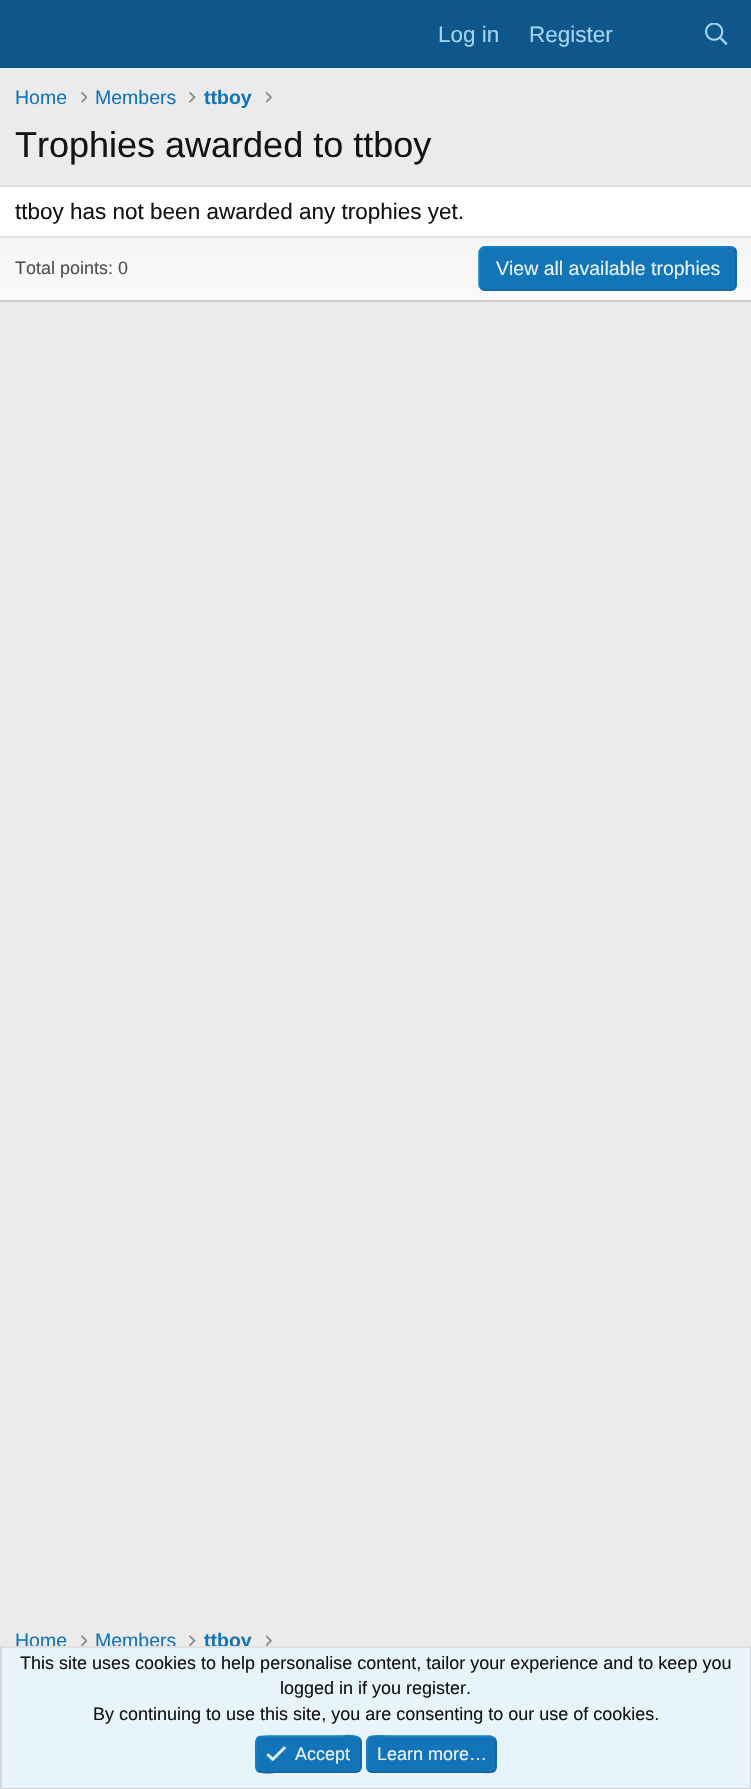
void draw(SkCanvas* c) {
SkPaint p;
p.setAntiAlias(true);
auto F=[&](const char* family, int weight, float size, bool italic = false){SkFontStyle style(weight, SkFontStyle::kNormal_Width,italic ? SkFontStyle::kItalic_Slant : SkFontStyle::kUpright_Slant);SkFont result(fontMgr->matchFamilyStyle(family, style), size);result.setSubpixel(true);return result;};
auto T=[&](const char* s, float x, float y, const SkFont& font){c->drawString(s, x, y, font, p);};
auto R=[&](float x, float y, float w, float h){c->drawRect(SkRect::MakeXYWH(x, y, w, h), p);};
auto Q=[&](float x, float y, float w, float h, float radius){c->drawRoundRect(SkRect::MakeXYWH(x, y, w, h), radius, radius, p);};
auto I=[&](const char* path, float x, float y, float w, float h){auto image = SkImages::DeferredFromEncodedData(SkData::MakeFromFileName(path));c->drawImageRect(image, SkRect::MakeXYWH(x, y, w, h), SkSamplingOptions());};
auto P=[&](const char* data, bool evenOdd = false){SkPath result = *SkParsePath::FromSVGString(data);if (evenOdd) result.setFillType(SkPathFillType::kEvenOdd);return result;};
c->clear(0xffebebeb);
p.setColor(0xff0f578a);
R(0,0,751,68);
auto f1 = F("Liberation Sans",400,22.5);
p.setColor(0xffa3d4f5);
T("Log in",438,42,f1);
T("Register",529,42,f1);
I("1.png",705,23,23,22);
auto f2 = F("Liberation Sans",400,19.5);
p.setColor(0xff1474b8);
T("Home",15,104,f2);
I("2.png",81,91,6,12);
T("Members",95,104,f2);
I("3.png",189,91,7,12);
auto f3 = F("Liberation Sans",700,19.5);
T("ttboy",204,104,f3);
I("4.png",266,91,6,12);
auto f4 = F("Liberation Sans",400,36);
p.setColor(0xff141414);
T("Trophies awarded to ttboy",15,157,f4);
p.setColor(0xffffffff);
R(0,187,751,49);
p.setColor(0xffe0e0e0);
R(0,185,751,2);
p.setColor(0xffcccccc);
R(0,300,751,2);
p.setColor(0xff141414);
T("ttboy has not been awarded any trophies yet.",15,219,f1);
{
const SkColor colors[] = {0xfff5f5f5,0xfffafafa};
const float stops[] = {0,1};
const SkPoint ends[] = {{376,237}, {376,300}};
p.setShader(SkGradientShader::MakeLinear(ends, colors, stops, 2, SkTileMode::kClamp));
p.setAlpha(255);
}
R(0,238,751,62);
p.setShader(nullptr);
p.setColor(0xffe0e0e0);
R(0,236,751,2);
auto f5 = F("Liberation Sans",400,18);
p.setColor(0xff4f4f4f);
T("Total points: 0",15,274,f5);
p.setColor(0xff1474b8);
Q(479,246,258,45,6);
p.setStroke(true);
p.setStrokeWidth(1.5);
p.setColor(0xff1265a1);
c->drawPath(P("M734 248.5c1 1 2 2 2 3.5v33c0 1.5-1 2.5-2 3.5c-1 1-2 1.5-3.5 1.5h-246c-1.5 0-2.5-.5-3.5-1.5"),p);
p.setColor(0xff1782cf);
c->drawPath(P("M481 288.5c-1-1-2-2-2-3.5v-33c0-1.5 1-2.5 2-3.5c1-1 2-1.5 3.5-1.5h246c1.5 0 2.5 .5 3.5 1.5"),p);
p.setStroke(false);
p.setColor(0xffe8f4fc);
T("View all available trophies",496,275,f2);
p.setColor(0xff1474b8);
T("Home",15,1647,f2);
I("5.png",81,1635,6,11);
T("Members",95,1647,f2);
I("6.png",189,1635,7,11);
T("ttboy",204,1647,f3);
I("7.png",266,1635,6,11);
p.setColor(0xffe8f4fc);
R(2,1648,748,140);
p.setColor(0xffe0e0e0);
R(0,1646,751,2);
p.setColor(0xffd6d6d6);
R(750,1646,1,143);
p.setColor(0xffcccccc);
R(0,1788,751,1);
p.setColor(0xffd6d6d6);
R(0,1646,2,143);
p.setColor(0xff141414);
T("This site uses cookies to help personalise content, tailor your experience and to keep you",20,1669,f5);
T("logged in if you register.",280,1694,f5);
T("By continuing to use this site, you are consenting to our use of cookies.",93,1720,f5);
p.setColor(0xff1474b8);
Q(255,1736,107,37,6);
p.setStroke(true);
p.setColor(0xff1265a1);
c->drawPath(P("M359 1738c3 2.5 2 12.5 2 16c0 21.5 1.5 18-21 18h-63c-2 0-16 2.5-19.5-1.5"),p);
p.setColor(0xff1782cf);
c->drawPath(P("M257.5 1770.5c-3-2.5-1.5-12.5-1.5-16.5c0-21-2-18 21-18h63c1.5 0 15.5-2 19 2"),p);
I("8.png",266,1746,21,16);
p.setStroke(false);
p.setColor(0xffe8f4fc);
T("Accept",295,1760,f5);
p.setColor(0xff1474b8);
Q(366,1736,131,37,6);
p.setStroke(true);
p.setColor(0xff1265a1);
c->drawPath(P("M494 1738c3 2.5 2 12.5 2 16c0 23 1 18-25 18h-99c-1.5 0-2.5-.5-3.5-1.5"),p);
p.setColor(0xff1782cf);
c->drawPath(P("M368.5 1770.5c-3-2.5-1.5-12.5-1.5-16.5c0-22.5-1.5-18 25-18h98.5c1.5 .5 2.5 1 3.5 2"),p);
p.setStroke(false);
p.setColor(0xffe8f4fc);
T("Learn more…",377,1760,f5);
}
